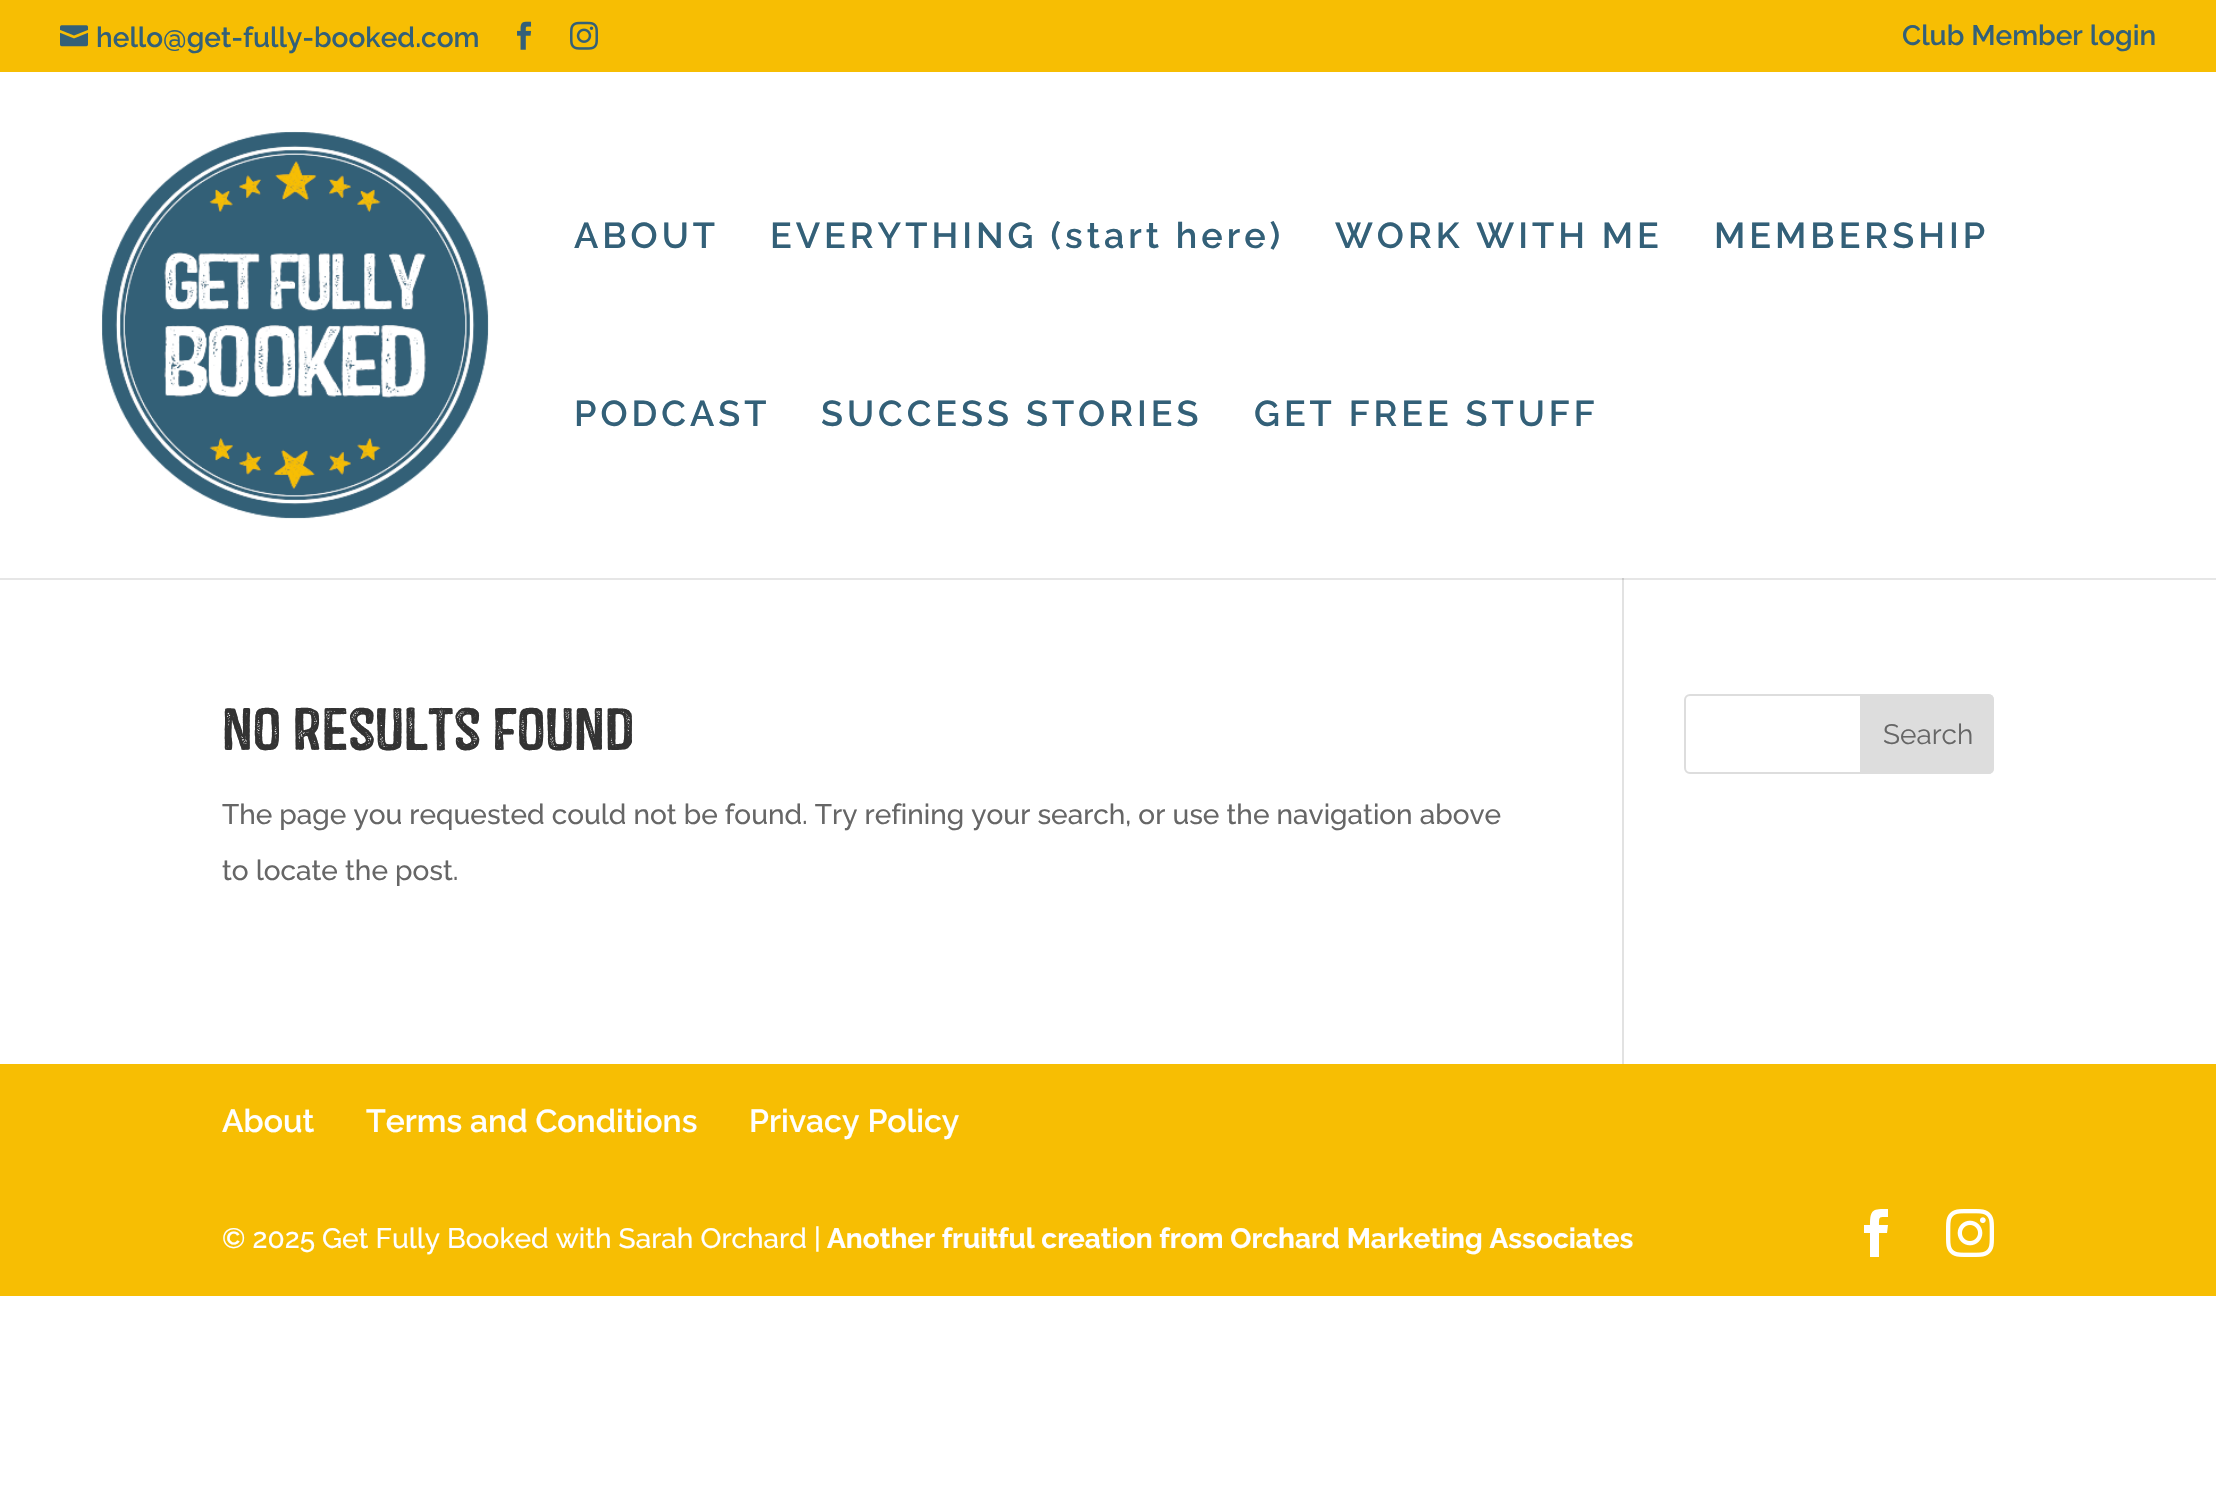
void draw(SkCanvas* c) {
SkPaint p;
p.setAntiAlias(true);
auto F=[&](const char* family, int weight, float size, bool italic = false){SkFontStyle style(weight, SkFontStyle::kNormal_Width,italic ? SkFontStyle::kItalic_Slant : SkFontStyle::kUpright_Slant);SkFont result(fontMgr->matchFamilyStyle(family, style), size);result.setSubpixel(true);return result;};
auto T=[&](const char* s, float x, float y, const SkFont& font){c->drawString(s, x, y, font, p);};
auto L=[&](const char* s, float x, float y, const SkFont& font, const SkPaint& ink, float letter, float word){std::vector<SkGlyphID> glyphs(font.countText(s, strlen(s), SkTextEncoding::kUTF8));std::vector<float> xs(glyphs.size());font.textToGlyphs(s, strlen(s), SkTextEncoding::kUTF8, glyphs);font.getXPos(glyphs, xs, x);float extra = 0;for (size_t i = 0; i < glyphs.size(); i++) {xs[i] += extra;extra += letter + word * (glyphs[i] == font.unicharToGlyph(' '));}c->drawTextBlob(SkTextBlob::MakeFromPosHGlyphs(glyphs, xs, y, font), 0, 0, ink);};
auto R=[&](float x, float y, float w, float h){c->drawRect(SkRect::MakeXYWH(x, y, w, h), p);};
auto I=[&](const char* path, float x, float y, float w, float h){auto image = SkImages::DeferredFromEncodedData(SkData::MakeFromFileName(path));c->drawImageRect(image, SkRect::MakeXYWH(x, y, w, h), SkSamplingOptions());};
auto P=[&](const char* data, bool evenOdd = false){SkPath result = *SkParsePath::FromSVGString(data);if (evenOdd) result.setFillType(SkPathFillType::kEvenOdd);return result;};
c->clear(0xffffffff);
p.setColor(0xffe6e6e6);
R(0,578,2216,2);
p.setColor(0xfff7be03);
R(0,0,2216,72);
I("1.png",60,25,28,22);
auto f1 = F("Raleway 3",100,28);
p.setColor(0xff336078);
T("hello@get-fully-booked.com",96,47,f1);
I("2.png",517,21,15,29);
I("3.png",570,21,28,29);
T("Club Member login",1902,45,f1);
I("4.png",101,131,388,388);
auto f2 = F("Raleway 3",100,36);
L("ABOUT",574,248,f2,p,4,0);
L("EVERYTHING (start here)",770,248,f2,p,4,0);
L("WORK WITH ME",1335,248,f2,p,4,0);
L("MEMBERSHIP",1714,248,f2,p,4,0);
L("PODCAST",574,426,f2,p,4,0);
L("SUCCESS STORIES",821,426,f2,p,4,0);
L("GET FREE STUFF",1254,426,f2,p,4,0);
p.setColor(0xffe2e2e2);
R(1622,578,2,486);
p.setColor(0xffcbcbcb);
R(1622,578,2,2);
auto f3 = F("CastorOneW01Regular",400,60);
p.setColor(0xff333333);
T("No Results Found",222,750,f3);
auto f4 = F("Raleway",100,28);
p.setColor(0xff666666);
T("The page you requested could not be found. Try refining your search, or use the navigation above",222,824,f4);
T("to locate the post.",222,880,f4);
p.setStroke(true);
p.setStrokeWidth(2);
p.setColor(0xffdddddd);
c->drawRoundRect(SkRect::MakeXYWH(1685,695,308,78),5,5,p);
p.setStroke(false);
c->drawPath(P("M1861 695h127c3 0 5 2 5 5v68c0 3-2 5-5 5h-127z"),p);
p.setStroke(true);
c->drawPath(P("M1861 695h127c3 0 5 2 5 5v68c0 3-2 5-5 5h-127z"),p);
auto f5 = F("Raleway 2",100,28);
p.setStroke(false);
p.setColor(0xff666666);
T("Search",1883,744,f5);
p.setColor(0xfff7be03);
R(0,1064,2216,232);
auto f6 = F("Raleway 3",100,32);
p.setColor(0xffffffff);
T("About",222,1132,f6);
T("Terms and Conditions",366,1132,f6);
T("Privacy Policy",749,1132,f6);
T("© 2025 Get Fully Booked with Sarah Orchard |",222,1248,f4);
auto f7 = F("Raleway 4",100,28);
T("Another fruitful creation from Orchard Marketing Associates",827,1248,f7);
c->drawPath(P("M1870 1257h9v-24h8l1-8h-9c0-9 0-8 9-8v-8c-15 0-18 0-18 16h-6v8h6z"),p);
I("5.png",1946,1209,48,48);
}
